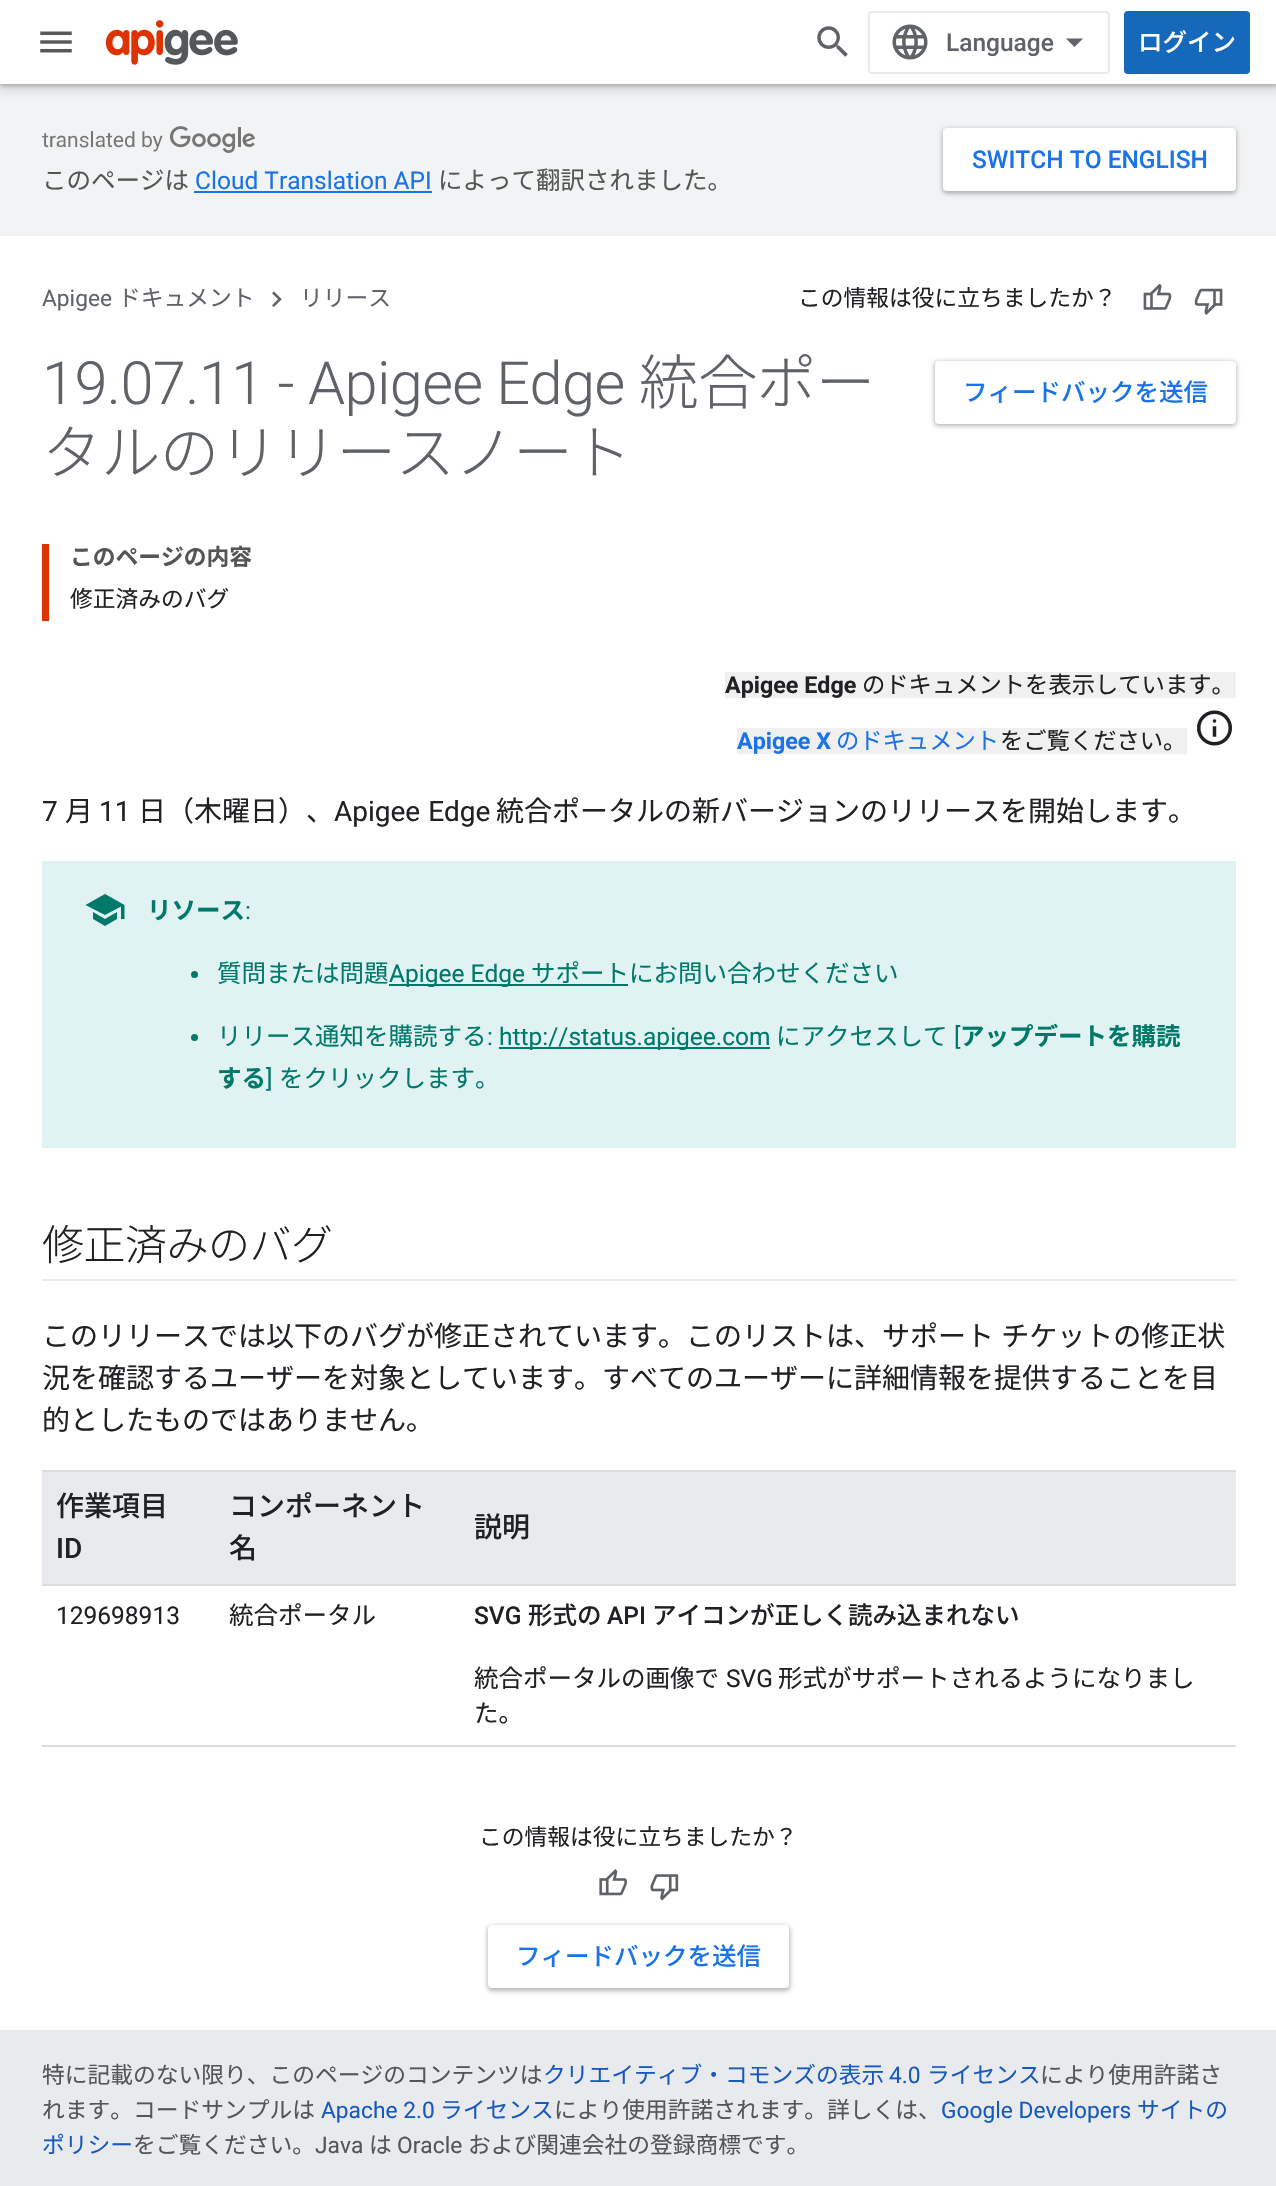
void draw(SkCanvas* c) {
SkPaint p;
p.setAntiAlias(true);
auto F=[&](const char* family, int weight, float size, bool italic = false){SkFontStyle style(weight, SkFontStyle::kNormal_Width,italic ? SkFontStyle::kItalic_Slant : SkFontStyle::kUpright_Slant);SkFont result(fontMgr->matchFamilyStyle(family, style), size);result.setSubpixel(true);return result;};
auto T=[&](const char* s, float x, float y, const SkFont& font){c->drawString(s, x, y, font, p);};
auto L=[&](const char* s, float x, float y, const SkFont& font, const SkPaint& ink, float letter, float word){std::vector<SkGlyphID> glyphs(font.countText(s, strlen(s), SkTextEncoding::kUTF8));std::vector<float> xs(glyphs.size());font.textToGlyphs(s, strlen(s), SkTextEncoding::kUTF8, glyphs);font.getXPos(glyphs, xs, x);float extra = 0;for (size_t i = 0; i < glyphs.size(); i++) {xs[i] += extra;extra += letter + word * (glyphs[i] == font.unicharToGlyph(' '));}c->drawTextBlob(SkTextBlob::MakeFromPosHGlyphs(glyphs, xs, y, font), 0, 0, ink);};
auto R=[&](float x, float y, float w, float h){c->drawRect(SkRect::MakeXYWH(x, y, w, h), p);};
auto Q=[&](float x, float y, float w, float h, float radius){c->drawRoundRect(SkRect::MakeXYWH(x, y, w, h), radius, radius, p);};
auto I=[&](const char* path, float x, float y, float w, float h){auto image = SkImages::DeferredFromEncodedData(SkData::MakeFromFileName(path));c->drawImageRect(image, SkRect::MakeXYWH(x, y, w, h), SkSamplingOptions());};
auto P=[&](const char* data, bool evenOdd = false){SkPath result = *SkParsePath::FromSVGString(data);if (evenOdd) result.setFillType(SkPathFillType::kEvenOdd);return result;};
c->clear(0xffe8eaed);
p.setColor(0xfff1f3f4);
R(0,84,1276,152);
p.setColor(0x263c4043);
p.setMaskFilter(SkMaskFilter::MakeBlur(kNormal_SkBlurStyle, 5));
c->drawRect(SkRect::MakeXYWH(-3,-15,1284,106),p);
p.setMaskFilter(nullptr);
p.setColor(0x4d3c4043);
p.setMaskFilter(SkMaskFilter::MakeBlur(kNormal_SkBlurStyle, 2));
c->drawRect(SkRect::MakeXYWH(0,-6,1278,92),p);
p.setMaskFilter(nullptr);
p.setColor(0xffffffff);
R(0,0,1276,84);
I("1.png",40,31,32,22);
I("2.png",105,20,133,45);
I("3.png",817,26,31,31);
p.setStroke(true);
p.setStrokeWidth(2);
p.setColor(0xffe8eaed);
c->drawRoundRect(SkRect::MakeXYWH(869,12,240,61),3,3,p);
I("4.png",892,24,36,36);
auto f1 = F("Roboto",500,24.5);
p.setStroke(false);
p.setColor(0xff5f6368);
T("Language",946,51,f1);
c->drawPath(P("M1074.5 47l-8.5-8.5h17z"),p);
p.setColor(0xff1568ba);
Q(1124,11,126,63,4);
auto f2 = F("Noto Sans JP",500,24.5);
p.setColor(0xffffffff);
T("ログイン",1138,51,f2);
R(0,236,1276,1794);
p.setColor(0x263c4043);
p.setMaskFilter(SkMaskFilter::MakeBlur(kNormal_SkBlurStyle, 2.5));
c->drawRoundRect(SkRect::MakeXYWH(942,128,295,66),5,5,p);
p.setMaskFilter(nullptr);
p.setColor(0x4d3c4043);
p.setMaskFilter(SkMaskFilter::MakeBlur(kNormal_SkBlurStyle, 2));
c->drawRoundRect(SkRect::MakeXYWH(943,130,293,63),4,4,p);
p.setMaskFilter(nullptr);
p.setColor(0xffffffff);
Q(943,128,293,63,4);
p.setColor(0xff1a73e8);
T("SWITCH TO ENGLISH",972,168,f1);
I("5.png",42,126,213,27);
auto f3 = F("Noto Sans JP",400,24.5);
p.setColor(0xff545555);
T("このページは",42,189,f3);
auto f4 = F("Roboto",400,24.5);
p.setColor(0xff1a73e8);
T("Cloud Translation API",195,189,f4);
R(194,191,238,2);
p.setColor(0xff545555);
T("によって翻訳されました。",438,189,f3);
auto f5 = F("Roboto",400,22.75);
p.setColor(0xff5f6368);
T("Apigee",42,306,f5);
auto f6 = F("Noto Sans JP",400,22.75);
T("ドキュメント",118,306,f6);
I("6.png",272,291,10,16);
T("リリース",300,306,f6);
p.setColor(0xff202124);
T("この情報は役に立ちましたか？",798,306,f6);
I("7.png",1143,284,29,26);
I("8.png",1194,288,29,27);
auto f7 = F("Roboto",300,59.5);
p.setColor(0xff5f6368);
L("19.07.11 - Apigee Edge",42,404,f7,p,-.6,0);
auto f8 = F("Noto Sans JP",300,59.5);
L("統合ポー",639,404,f8,p,-.6,0);
p.setColor(0x263c4043);
p.setMaskFilter(SkMaskFilter::MakeBlur(kNormal_SkBlurStyle, 2.5));
c->drawRoundRect(SkRect::MakeXYWH(933,361,304,66),5,5,p);
p.setMaskFilter(nullptr);
p.setColor(0x4d3c4043);
p.setMaskFilter(SkMaskFilter::MakeBlur(kNormal_SkBlurStyle, 2));
c->drawRoundRect(SkRect::MakeXYWH(935,362,301,63),4,4,p);
p.setMaskFilter(nullptr);
p.setColor(0xffffffff);
Q(935,361,301,63,4);
p.setColor(0xff1a73e8);
T("フィードバックを送信",963,401,f2);
p.setColor(0xff5f6368);
L("タルのリリースノート",42,474,f8,p,-.6,0);
p.setColor(0xffdd3303);
R(42,544,7,77);
auto f9 = F("Noto Sans JP",700,22.75);
p.setColor(0xff545555);
T("このページの内容",70,565,f9);
p.setColor(0xff202124);
T("修正済みのバグ",70,607,f6);
p.setColor(0xfff0f0f0);
R(725,672,511,26);
auto f10 = F("Roboto",700,23.3);
p.setColor(0xff202124);
T("Apigee Edge",725,693,f10);
auto f11 = F("Noto Sans JP",400,23.3);
T("のドキュメントを表示しています。",862,693,f11);
p.setColor(0xfff0f0f0);
R(737,728,450,26);
p.setColor(0xff1a73e8);
T("Apigee X",737,749,f10);
T("のドキュメント",836,749,f11);
p.setColor(0xff202124);
T("をご覧ください。",1000,749,f11);
I("9.png",1197,710,35,36);
auto f12 = F("Roboto",400,28);
T("7",42,821,f12);
auto f13 = F("Noto Sans JP",400,28);
T("月",65,821,f13);
T("11",99,821,f12);
T("日（木曜日）、",138,821,f13);
L("Apigee Edge",334,821,f12,p,0,1);
T("統合ポータルの新バージョンのリリースを開始します。",496,821,f13);
p.setColor(0xffe0f2f1);
R(42,861,1194,287);
p.setColor(0xff00796b);
c->drawPath(P("M105 894l19.5 11v14h-3.5v-12.5l-16 8.5l-19.5-10zm-12 18l12 7l12-7v7l-12 7l-12-7z"),p);
auto f14 = F("Noto Sans JP",700,24.5);
T("リソース",147,919,f14);
T(":",245,919,f4);
c->drawCircle(194.5,974.5,3.5,p);
T("質問または問題",217,982,f3);
R(389,984,239,2);
T("Apigee Edge",389,982,f4);
T("サポートにお問い合わせください",531,982,f3);
c->drawCircle(194.5,1037.5,3.5,p);
T("リリース通知を購読する",217,1045,f3);
T(":",487,1045,f4);
R(499,1047,271,2);
T("http://status.apigee.com",499,1045,f4);
T("にアクセスして",776,1045,f3);
T("[",954,1045,f4);
T("アップデートを購読",960,1045,f14);
T("する",217,1087,f14);
T("]",266,1087,f4);
T("をクリックします。",279,1087,f3);
p.setColor(0xffe8eaed);
R(42,1279,1194,2);
auto f15 = F("Noto Sans JP",300,42);
p.setColor(0xff202124);
L("修正済みのバグ",42,1260,f15,p,-.5,0);
L("このリリースでは以下のバグが修正されています。このリストは、サポート チケットの修正状",42,1346,f13,p,0,1);
T("況を確認するユーザーを対象としています。すべてのユーザーに詳細情報を提供することを目",42,1388,f13);
T("的としたものではありません。",42,1430,f13);
p.setColor(0xffdadce0);
R(42,1470,1194,2);
p.setColor(0xffe8eaed);
R(42,1472,1194,112);
auto f16 = F("Noto Sans JP",500,28);
p.setColor(0xff202124);
T("作業項目",56,1516,f16);
auto f17 = F("Roboto",500,28);
T("ID",56,1558,f17);
T("コンポーネント",229,1516,f16);
T("名",229,1558,f16);
T("説明",474,1537,f16);
p.setColor(0xffdadce0);
R(42,1584,1194,2);
R(42,1745,1194,2);
p.setColor(0xff202124);
T("129698913",56,1624,f4);
T("統合ポータル",229,1624,f3);
T("SVG",474,1624,f1);
T("形式の",528,1624,f2);
T("API",607,1624,f1);
T("アイコンが正しく読み込まれない",652,1624,f2);
T("統合ポータルの画像で",474,1687,f3);
T("SVG",726,1687,f4);
T("形式がサポートされるようになりまし",778,1687,f3);
T("た。",474,1722,f3);
T("この情報は役に立ちましたか？",479,1845,f6);
I("10.png",599,1869,28,27);
I("11.png",650,1874,29,27);
p.setColor(0x263c4043);
p.setMaskFilter(SkMaskFilter::MakeBlur(kNormal_SkBlurStyle, 2.5));
c->drawRoundRect(SkRect::MakeXYWH(487,1925,304,67),5,5,p);
p.setMaskFilter(nullptr);
p.setColor(0x4d3c4043);
p.setMaskFilter(SkMaskFilter::MakeBlur(kNormal_SkBlurStyle, 2));
c->drawRoundRect(SkRect::MakeXYWH(488,1927,301,63),4,4,p);
p.setMaskFilter(nullptr);
p.setColor(0xffffffff);
Q(488,1925,301,63,4);
p.setColor(0xff1a73e8);
T("フィードバックを送信",516,1965,f2);
p.setColor(0xff545555);
T("特に記載のない限り、このページのコンテンツは",42,2083,f6);
p.setColor(0xff185abc);
T("クリエイティブ・コモンズの表示",543,2083,f6);
T("4.0",889,2083,f5);
T("ライセンス",927,2083,f6);
p.setColor(0xff545555);
T("により使用許諾さ",1040,2083,f6);
T("れます。コードサンプルは",42,2118,f6);
p.setColor(0xff185abc);
T("Apache 2.0",321,2118,f5);
T("ライセンス",440,2118,f6);
p.setColor(0xff545555);
T("により使用許諾されます。詳しくは、",554,2118,f6);
p.setColor(0xff185abc);
T("Google Developers",941,2118,f5);
T("サイトの",1137,2118,f6);
T("ポリシー",42,2153,f6);
p.setColor(0xff545555);
T("をご覧ください。",133,2153,f6);
T("Java",315,2153,f5);
T("は",369,2153,f6);
T("Oracle",397,2153,f5);
T("および関連会社の登録商標です。",468,2153,f6);
}
